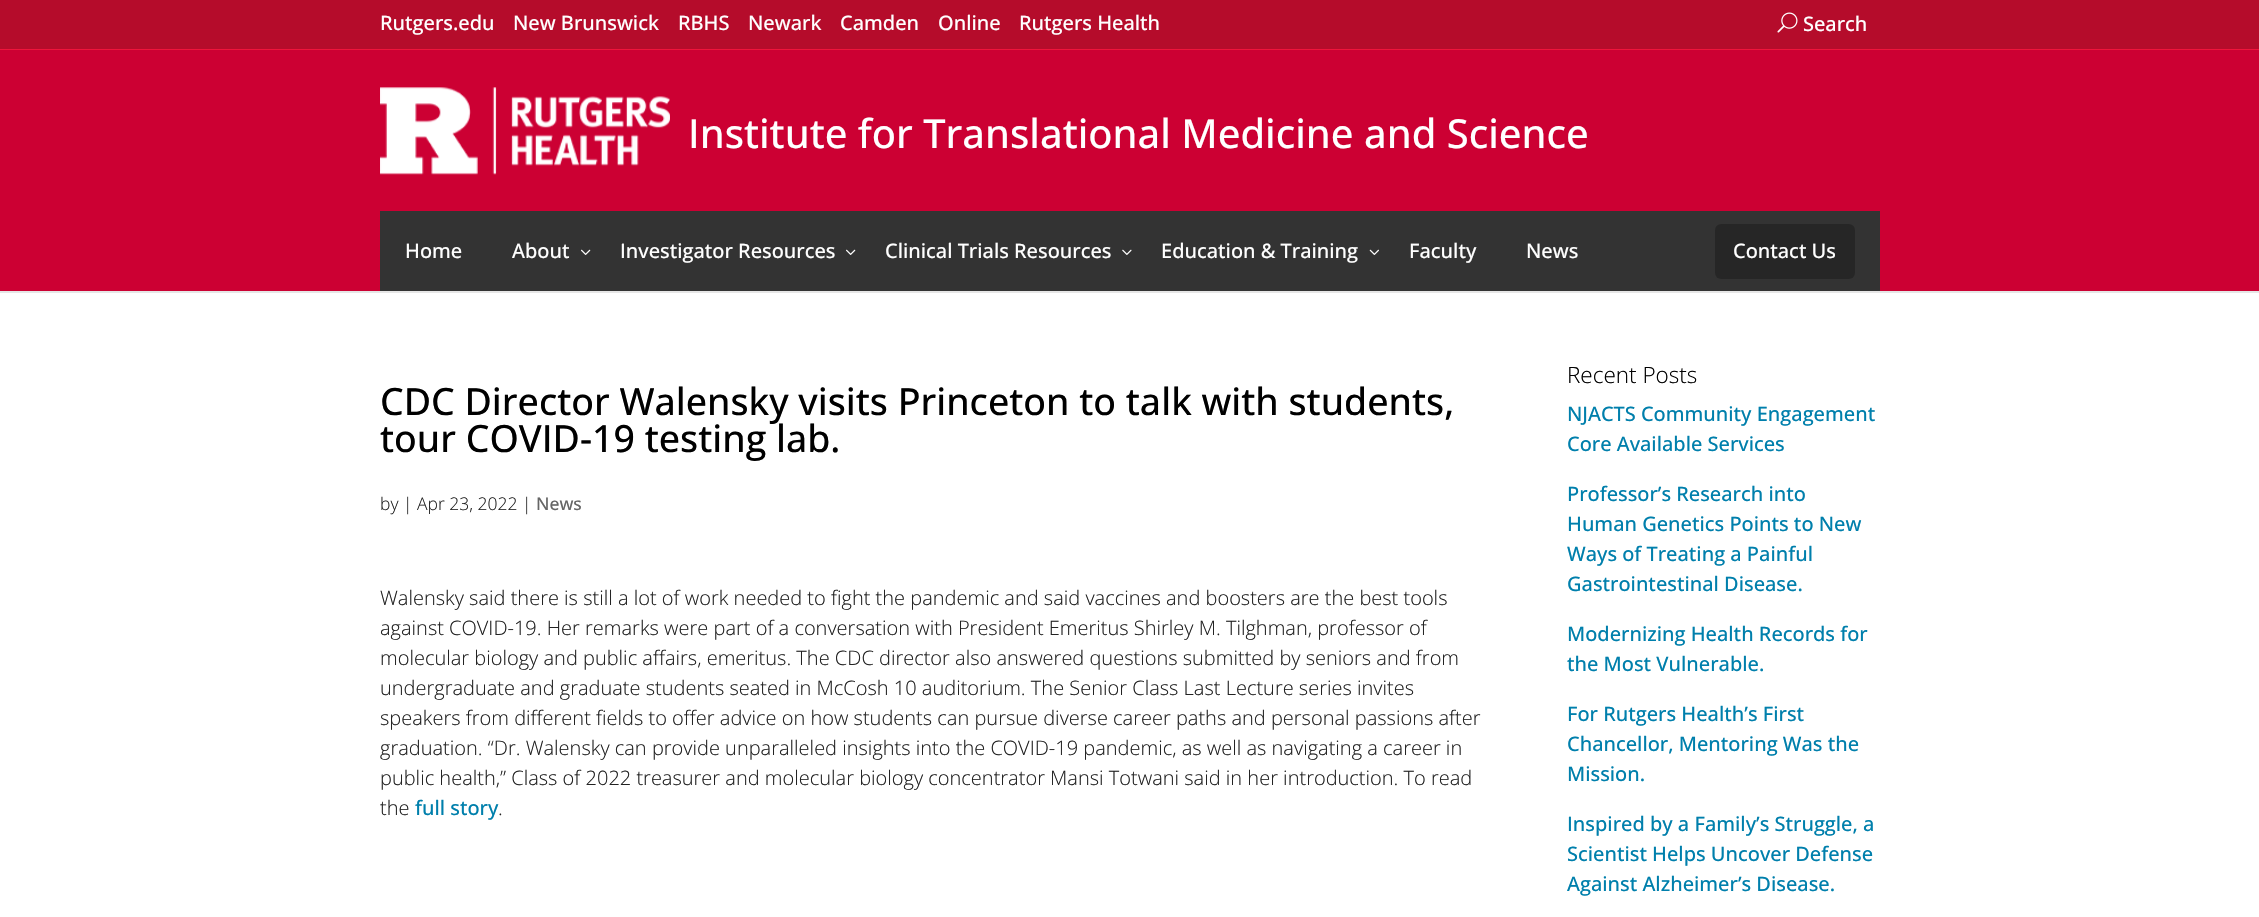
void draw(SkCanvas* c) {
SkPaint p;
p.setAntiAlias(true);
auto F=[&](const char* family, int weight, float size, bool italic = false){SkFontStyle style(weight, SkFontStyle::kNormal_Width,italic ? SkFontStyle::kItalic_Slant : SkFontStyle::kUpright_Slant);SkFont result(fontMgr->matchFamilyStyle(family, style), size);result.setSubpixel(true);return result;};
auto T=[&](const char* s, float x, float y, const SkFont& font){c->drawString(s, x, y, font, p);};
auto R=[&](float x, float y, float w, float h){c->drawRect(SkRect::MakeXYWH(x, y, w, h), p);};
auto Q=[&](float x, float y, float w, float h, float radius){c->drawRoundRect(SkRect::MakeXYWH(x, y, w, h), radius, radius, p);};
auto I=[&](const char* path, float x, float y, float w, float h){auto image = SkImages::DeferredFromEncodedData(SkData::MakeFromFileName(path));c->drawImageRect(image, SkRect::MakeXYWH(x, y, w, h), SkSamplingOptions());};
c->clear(0xffffffff);
p.setColor(0xffb50c2b);
R(0,0,2259,49);
p.setColor(0xffef143c);
R(0,49,2259,1);
auto f1 = F("Open Sans",500,20);
p.setColor(0xffffffff);
T("Rutgers.edu",380,30,f1);
T("New Brunswick",513,30,f1);
T("RBHS",678,30,f1);
T("Newark",748,30,f1);
T("Camden",840,30,f1);
T("Online",938,30,f1);
T("Rutgers Health",1019,30,f1);
I("1.png",1777,12,21,21);
T("Search",1803,31,f1);
p.setColor(0xffe6e6e6);
R(0,291,2259,2);
p.setColor(0xffcc0033);
R(0,50,2259,241);
I("2.png",380,87,290,88);
auto f2 = F("Open Sans",500,40);
p.setColor(0xffffffff);
T("Institute for Translational Medicine and Science",688,148,f2);
p.setColor(0xff333333);
R(380,211,1500,80);
p.setColor(0xffffffff);
T("Home",405,258,f1);
T("About",512,258,f1);
I("3.png",581,249,10,6);
T("Investigator Resources",620,258,f1);
I("3.png",846,249,10,6);
T("Clinical Trials Resources",885,258,f1);
I("4.png",1122,249,10,6);
T("Education & Training",1161,258,f1);
I("5.png",1369,249,10,6);
T("Faculty",1409,258,f1);
T("News",1526,258,f1);
p.setColor(0xff262626);
Q(1715,224,140,55,6);
p.setColor(0xffffffff);
T("Contact Us",1733,258,f1);
auto f3 = F("Open Sans",500,37.5);
p.setColor(0xff000000);
T("CDC Director Walensky visits Princeton to talk with students,",380,415,f3);
T("tour COVID-19 testing lab.",380,452,f3);
auto f4 = F("Open Sans",300,17.5);
p.setColor(0xff222222);
T("by | Apr 23, 2022 |",380,510,f4);
auto f5 = F("Open Sans",500,17.5);
p.setColor(0xff666666);
T("News",536,510,f5);
auto f6 = F("Open Sans",300,20);
p.setColor(0xff222222);
T("Walensky said there is still a lot of work needed to fight the pandemic and said vaccines and boosters are the best tools",380,605,f6);
T("against COVID-19. Her remarks were part of a conversation with President Emeritus Shirley M. Tilghman, professor of",380,635,f6);
T("molecular biology and public affairs, emeritus. The CDC director also answered questions submitted by seniors and from",380,665,f6);
T("undergraduate and graduate students seated in McCosh 10 auditorium. The Senior Class Last Lecture series invites",380,695,f6);
T("speakers from different fields to offer advice on how students can pursue diverse career paths and personal passions after",380,725,f6);
T("graduation. “Dr. Walensky can provide unparalleled insights into the COVID-19 pandemic, as well as navigating a career in",380,755,f6);
T("public health,” Class of 2022 treasurer and molecular biology concentrator Mansi Totwani said in her introduction. To read",380,785,f6);
T("the",380,815,f6);
p.setColor(0xff007fac);
T("full story",415,815,f1);
p.setColor(0xff222222);
T(".",498,815,f6);
auto f7 = F("Open Sans",300,22.5);
p.setColor(0xff000000);
T("Recent Posts",1567,383,f7);
p.setColor(0xff007fac);
T("NJACTS Community Engagement",1567,421,f1);
T("Core Available Services",1567,451,f1);
T("Professor’s Research into",1567,501,f1);
T("Human Genetics Points to New",1567,531,f1);
T("Ways of Treating a Painful",1567,561,f1);
T("Gastrointestinal Disease.",1567,591,f1);
T("Modernizing Health Records for",1567,641,f1);
T("the Most Vulnerable.",1567,671,f1);
T("For Rutgers Health’s First",1567,721,f1);
T("Chancellor, Mentoring Was the",1567,751,f1);
T("Mission.",1567,781,f1);
T("Inspired by a Family’s Struggle, a",1567,831,f1);
T("Scientist Helps Uncover Defense",1567,861,f1);
T("Against Alzheimer’s Disease.",1567,891,f1);
}
